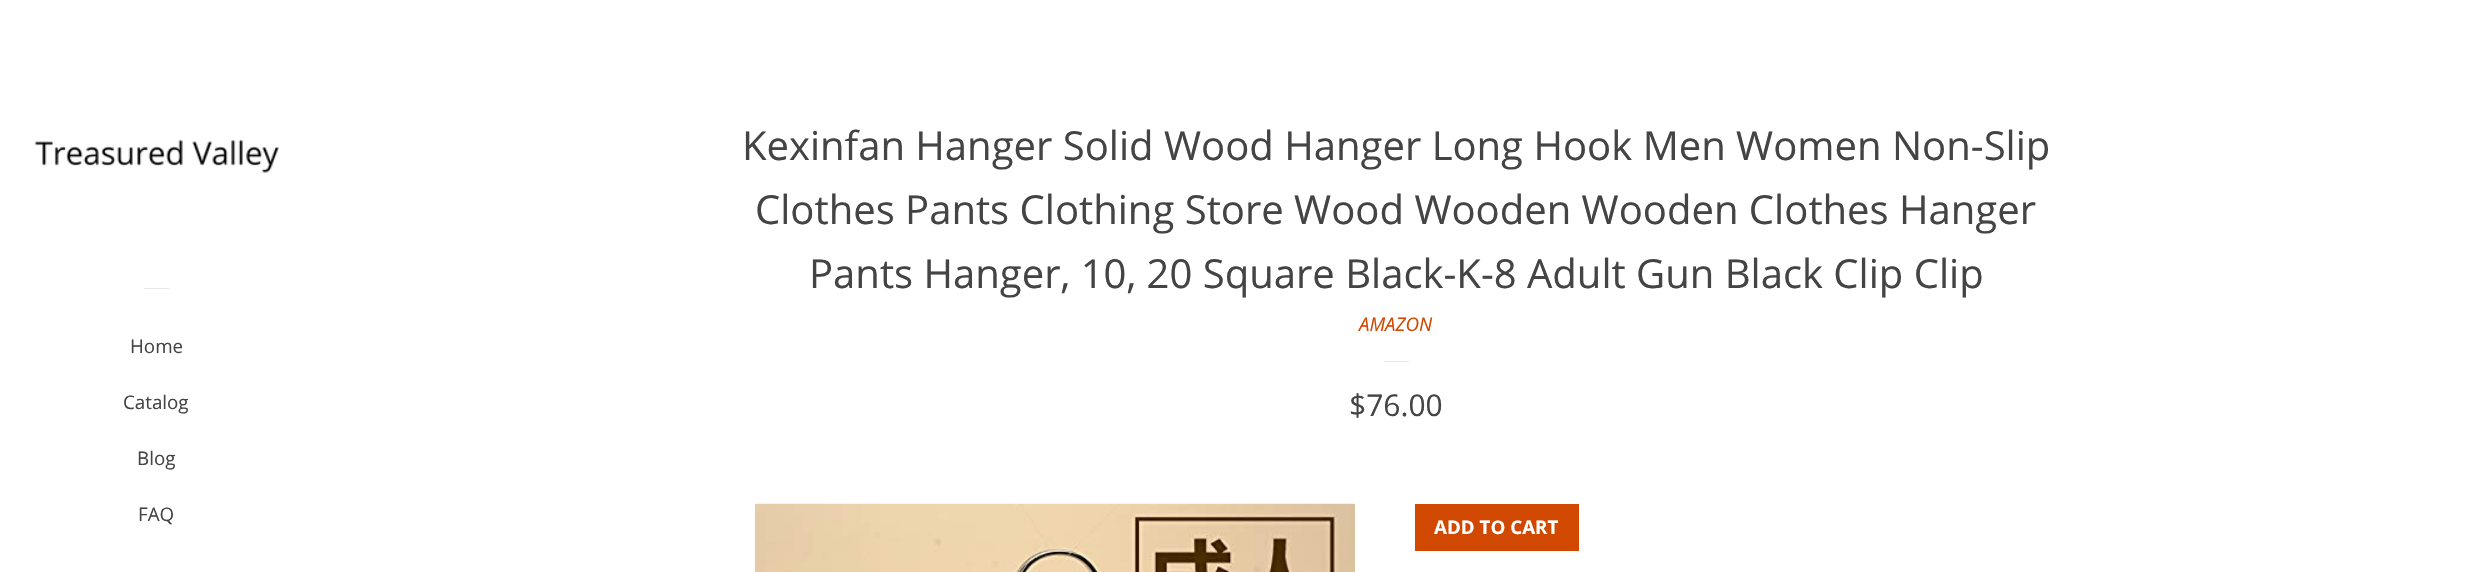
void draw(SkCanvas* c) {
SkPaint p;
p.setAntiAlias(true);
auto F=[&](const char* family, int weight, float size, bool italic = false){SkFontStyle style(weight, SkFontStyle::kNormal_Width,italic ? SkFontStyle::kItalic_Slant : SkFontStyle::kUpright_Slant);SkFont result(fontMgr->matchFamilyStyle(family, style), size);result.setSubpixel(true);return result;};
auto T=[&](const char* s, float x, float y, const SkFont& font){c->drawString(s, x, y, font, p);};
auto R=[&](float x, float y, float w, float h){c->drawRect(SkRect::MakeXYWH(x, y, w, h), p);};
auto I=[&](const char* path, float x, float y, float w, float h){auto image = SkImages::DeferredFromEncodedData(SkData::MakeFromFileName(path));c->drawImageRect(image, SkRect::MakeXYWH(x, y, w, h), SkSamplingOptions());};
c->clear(0xffffffff);
I("1.png",34,139,245,34);
p.setColor(0xffe6e6e6);
R(144,288,25,1);
auto f1 = F("Open Sans",400,18.75);
p.setColor(0xff444444);
T("Home",130,353,f1);
T("Catalog",123,409,f1);
T("Blog",137,465,f1);
T("FAQ",138,521,f1);
auto f2 = F("Open Sans",400,40);
T("Kexinfan Hanger Solid Wood Hanger Long Hook Men Women Non-Slip",742,160,f2);
T("Clothes Pants Clothing Store Wood Wooden Wooden Clothes Hanger",755,224,f2);
T("Pants Hanger, 10, 20 Square Black-K-8 Adult Gun Black Clip Clip",809,288,f2);
auto f3 = F("Open Sans",400,18.75,true);
p.setColor(0xffd14800);
T("AMAZON",1359,331,f3);
p.setColor(0xffe7e7e7);
R(1384,361,25,1);
auto f4 = F("Open Sans",400,30);
p.setColor(0xff444444);
T("$76.00",1349,416,f4);
I("2.png",755,503,600,69);
p.setColor(0xffd14800);
R(1415,504,164,47);
auto f5 = F("Open Sans",700,18.75);
p.setColor(0xffffffff);
T("ADD TO CART",1434,534,f5);
}
